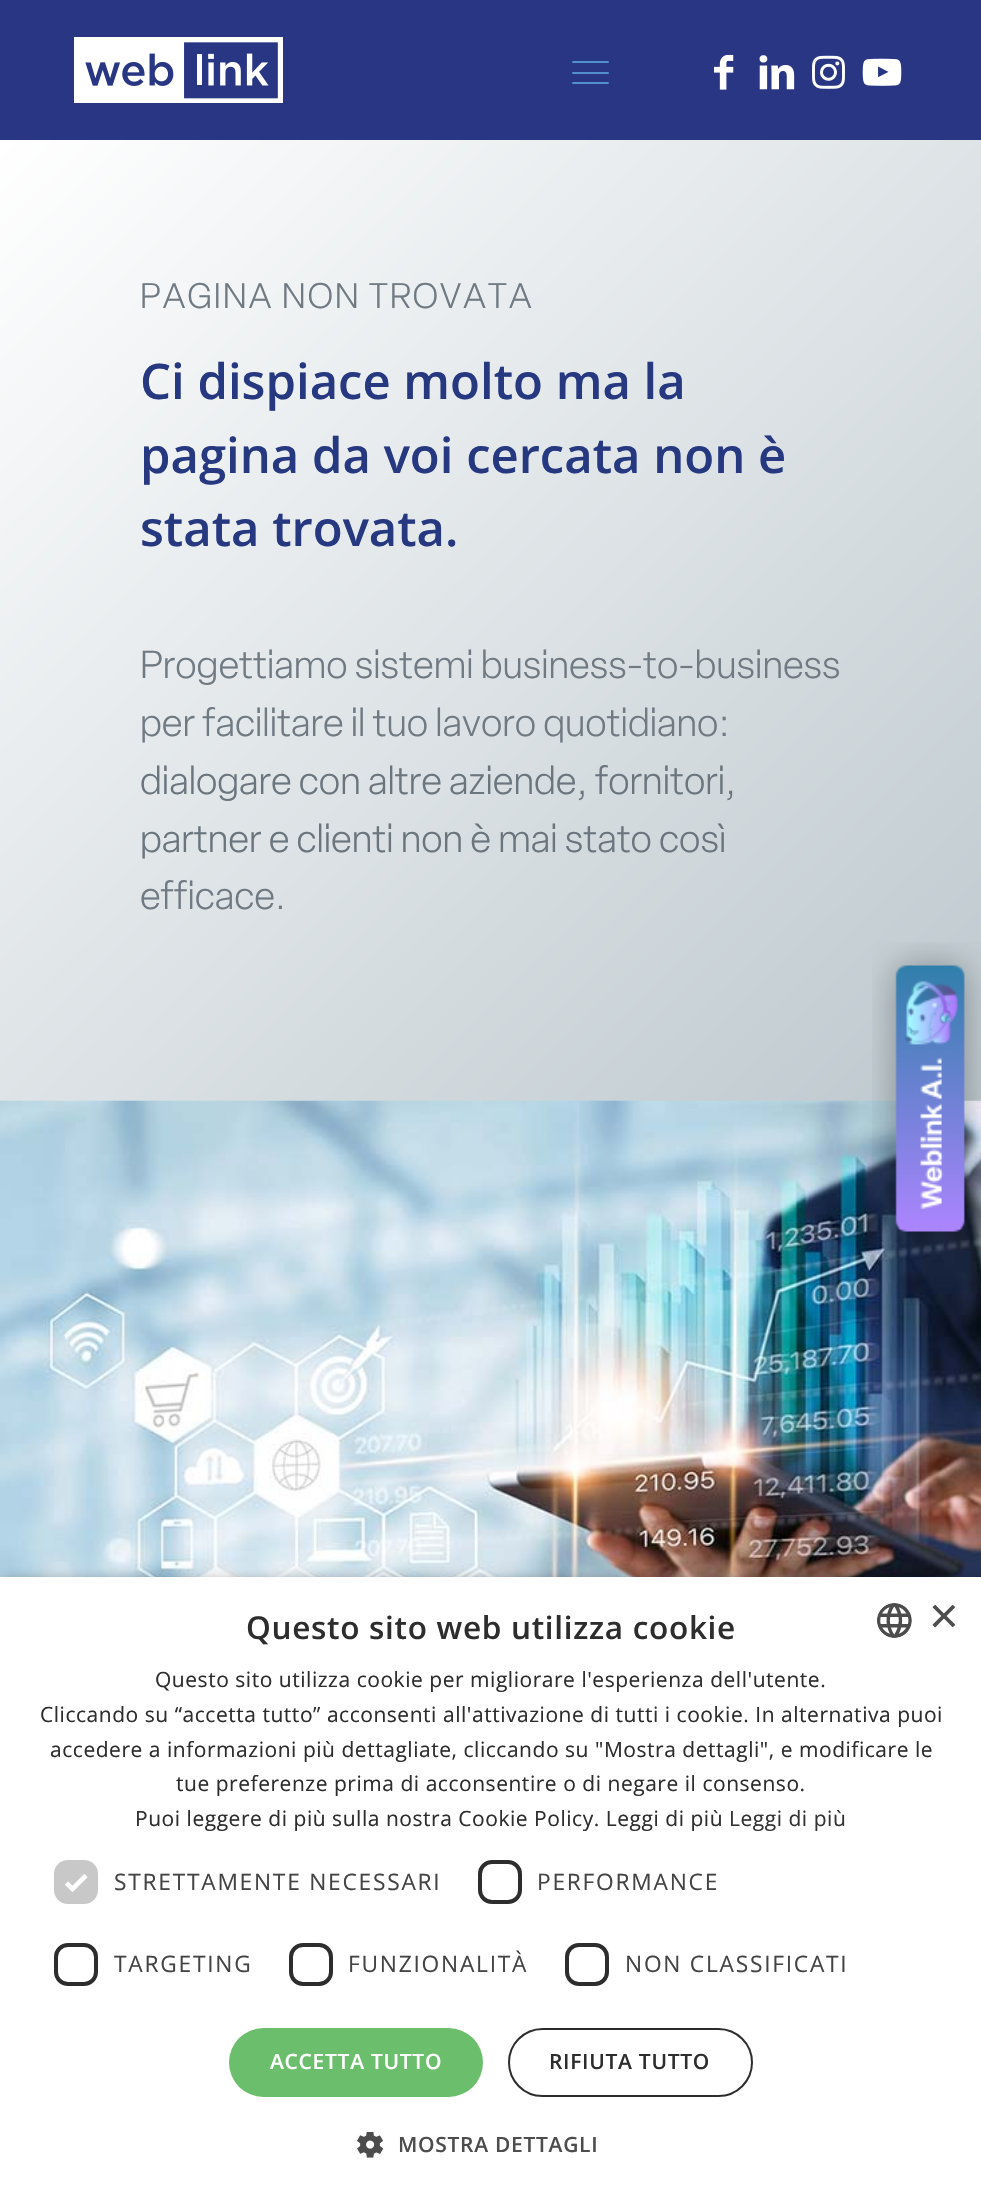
void draw(SkCanvas* c) {
SkPaint p;
p.setAntiAlias(true);
auto F=[&](const char* family, int weight, float size, bool italic = false){SkFontStyle style(weight, SkFontStyle::kNormal_Width,italic ? SkFontStyle::kItalic_Slant : SkFontStyle::kUpright_Slant);SkFont result(fontMgr->matchFamilyStyle(family, style), size);result.setSubpixel(true);return result;};
auto T=[&](const char* s, float x, float y, const SkFont& font){c->drawString(s, x, y, font, p);};
auto L=[&](const char* s, float x, float y, const SkFont& font, const SkPaint& ink, float letter, float word){std::vector<SkGlyphID> glyphs(font.countText(s, strlen(s), SkTextEncoding::kUTF8));std::vector<float> xs(glyphs.size());font.textToGlyphs(s, strlen(s), SkTextEncoding::kUTF8, glyphs);font.getXPos(glyphs, xs, x);float extra = 0;for (size_t i = 0; i < glyphs.size(); i++) {xs[i] += extra;extra += letter + word * (glyphs[i] == font.unicharToGlyph(' '));}c->drawTextBlob(SkTextBlob::MakeFromPosHGlyphs(glyphs, xs, y, font), 0, 0, ink);};
auto R=[&](float x, float y, float w, float h){c->drawRect(SkRect::MakeXYWH(x, y, w, h), p);};
auto Q=[&](float x, float y, float w, float h, float radius){c->drawRoundRect(SkRect::MakeXYWH(x, y, w, h), radius, radius, p);};
auto I=[&](const char* path, float x, float y, float w, float h){auto image = SkImages::DeferredFromEncodedData(SkData::MakeFromFileName(path));c->drawImageRect(image, SkRect::MakeXYWH(x, y, w, h), SkSamplingOptions());};
auto P=[&](const char* data, bool evenOdd = false){SkPath result = *SkParsePath::FromSVGString(data);if (evenOdd) result.setFillType(SkPathFillType::kEvenOdd);return result;};
c->clear(0xffffffff);
p.setColor(0xff283683);
R(0,0,981,140);
I("1.png",74,37,209,66);
p.setColor(0xff4f90cd);
Q(572,72,37,2,1);
Q(572,61,37,2,1);
Q(572,82,37,2,1);
I("2.png",714,54,20,36);
I("3.png",759,55,36,35);
I("4.png",812,55,33,34);
I("5.png",862,58,40,28);
{
const SkColor colors[] = {0xffbdc8ce,0xffffffff};
const float stops[] = {0,1};
const SkPoint ends[] = {{971,1111}, {11,130}};
p.setShader(SkGradientShader::MakeLinear(ends, colors, stops, 2, SkTileMode::kClamp));
p.setAlpha(255);
}
R(0,140,981,961);
auto f1 = F("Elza",300,35);
p.setShader(nullptr);
p.setColor(0xff707a83);
L("PAGINA NON TROVATA",140,308,f1,p,1.75,0);
auto f2 = F("Open Sans",600,49);
p.setColor(0xff253880);
T("Ci dispiace molto ma la",140,399,f2);
T("pagina da voi cercata non è",140,473,f2);
T("stata trovata.",140,546,f2);
auto f3 = F("Elza",300,38.5);
p.setColor(0xff707a83);
T("Progettiamo sistemi business-to-business",140,678,f3);
T("per facilitare il tuo lavoro quotidiano:",140,736,f3);
p.setColor(0xff6a757e);
T("dialogare con altre aziende, fornitori,",140,794,f3);
T("partner e clienti non è mai stato così",140,852,f3);
p.setColor(0xff707a83);
T("efficace.",140,909,f3);
I("6.png",0,1100,981,477);
I("7.png",872,942,109,308);
p.setColor(0x59000000);
p.setMaskFilter(SkMaskFilter::MakeBlur(kNormal_SkBlurStyle, 7));
c->drawRect(SkRect::MakeXYWH(2,1580,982,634),p);
p.setMaskFilter(nullptr);
p.setColor(0xffffffff);
R(0,1577,981,633);
auto f4 = F("Open Sans",600,31.5);
p.setColor(0xff2d2d2d);
L("Questo sito web utilizza cookie",246,1639,f4,p,.7,0);
I("8.png",877,1603,35,35);
auto f5 = F("Liberation Sans",400,51);
p.setColor(0xff4d4d4d);
T("×",929,1633,f5);
auto f6 = F("Open Sans",400,21);
p.setColor(0xff2d2d2d);
L("Questo sito utilizza cookie per migliorare l'esperienza dell'utente.",155,1687,f6,p,.53,0);
L("Cliccando su “accetta tutto” acconsenti all'attivazione di tutti i cookie. In alternativa puoi",40,1722,f6,p,.53,0);
L("accedere a informazioni più dettagliate, cliccando su \"Mostra dettagli\", e modificare le",50,1757,f6,p,.53,0);
L("tue preferenze prima di acconsentire o di negare il consenso.",176,1791,f6,p,.53,0);
L("Puoi leggere di più sulla nostra Cookie Policy. Leggi di più",135,1826,f6,p,.53,0);
p.setColor(0xff333333);
L("Leggi di più",729,1826,f6,p,.53,0);
p.setColor(0xffc8c8c8);
Q(54,1860,44,44,14);
p.setStroke(true);
p.setStrokeWidth(4.6);
p.setColor(0xffffffff);
c->drawPath(P("M66.5 1883l6 6l13.5-13.5"),p);
auto f7 = F("Open Sans",400,22.75);
p.setStroke(false);
p.setColor(0xff444444);
L("STRETTAMENTE NECESSARI",114,1890,f7,p,1.75,0);
p.setStroke(true);
p.setStrokeWidth(4);
p.setColor(0xff2d2d2d);
c->drawRoundRect(SkRect::MakeXYWH(480,1862,40,40),12,12,p);
p.setStroke(false);
p.setColor(0xff444444);
L("PERFORMANCE",537,1890,f7,p,1.75,0);
p.setStroke(true);
p.setColor(0xff2d2d2d);
c->drawRoundRect(SkRect::MakeXYWH(56,1945,40,39),12,12,p);
p.setStroke(false);
p.setColor(0xff444444);
L("TARGETING",114,1972,f7,p,1.75,0);
p.setStroke(true);
p.setColor(0xff2d2d2d);
c->drawRoundRect(SkRect::MakeXYWH(291,1945,40,39),12,12,p);
p.setStroke(false);
p.setColor(0xff444444);
L("FUNZIONALITÀ",348,1972,f7,p,1.75,0);
p.setStroke(true);
p.setColor(0xff2d2d2d);
c->drawRoundRect(SkRect::MakeXYWH(567,1945,40,39),12,12,p);
p.setStroke(false);
p.setColor(0xff444444);
L("NON CLASSIFICATI",625,1972,f7,p,1.75,0);
p.setColor(0xff6bbe6b);
Q(229,2028,254,69,34.5);
auto f8 = F("Open Sans",600,21);
p.setColor(0xffffffff);
L("ACCETTA TUTTO",270,2069,f8,p,.7,0);
p.setStroke(true);
p.setStrokeWidth(2);
p.setColor(0xff2d2d2d);
c->drawRoundRect(SkRect::MakeXYWH(509,2029,243,67),33.5,33.5,p);
p.setStroke(false);
L("RIFIUTA TUTTO",549,2069,f8,p,.7,0);
I("9.png",357,2132,26,26);
p.setColor(0xff4d4d4d);
L("MOSTRA DETTAGLI",398,2152,f8,p,.7,0);
}
